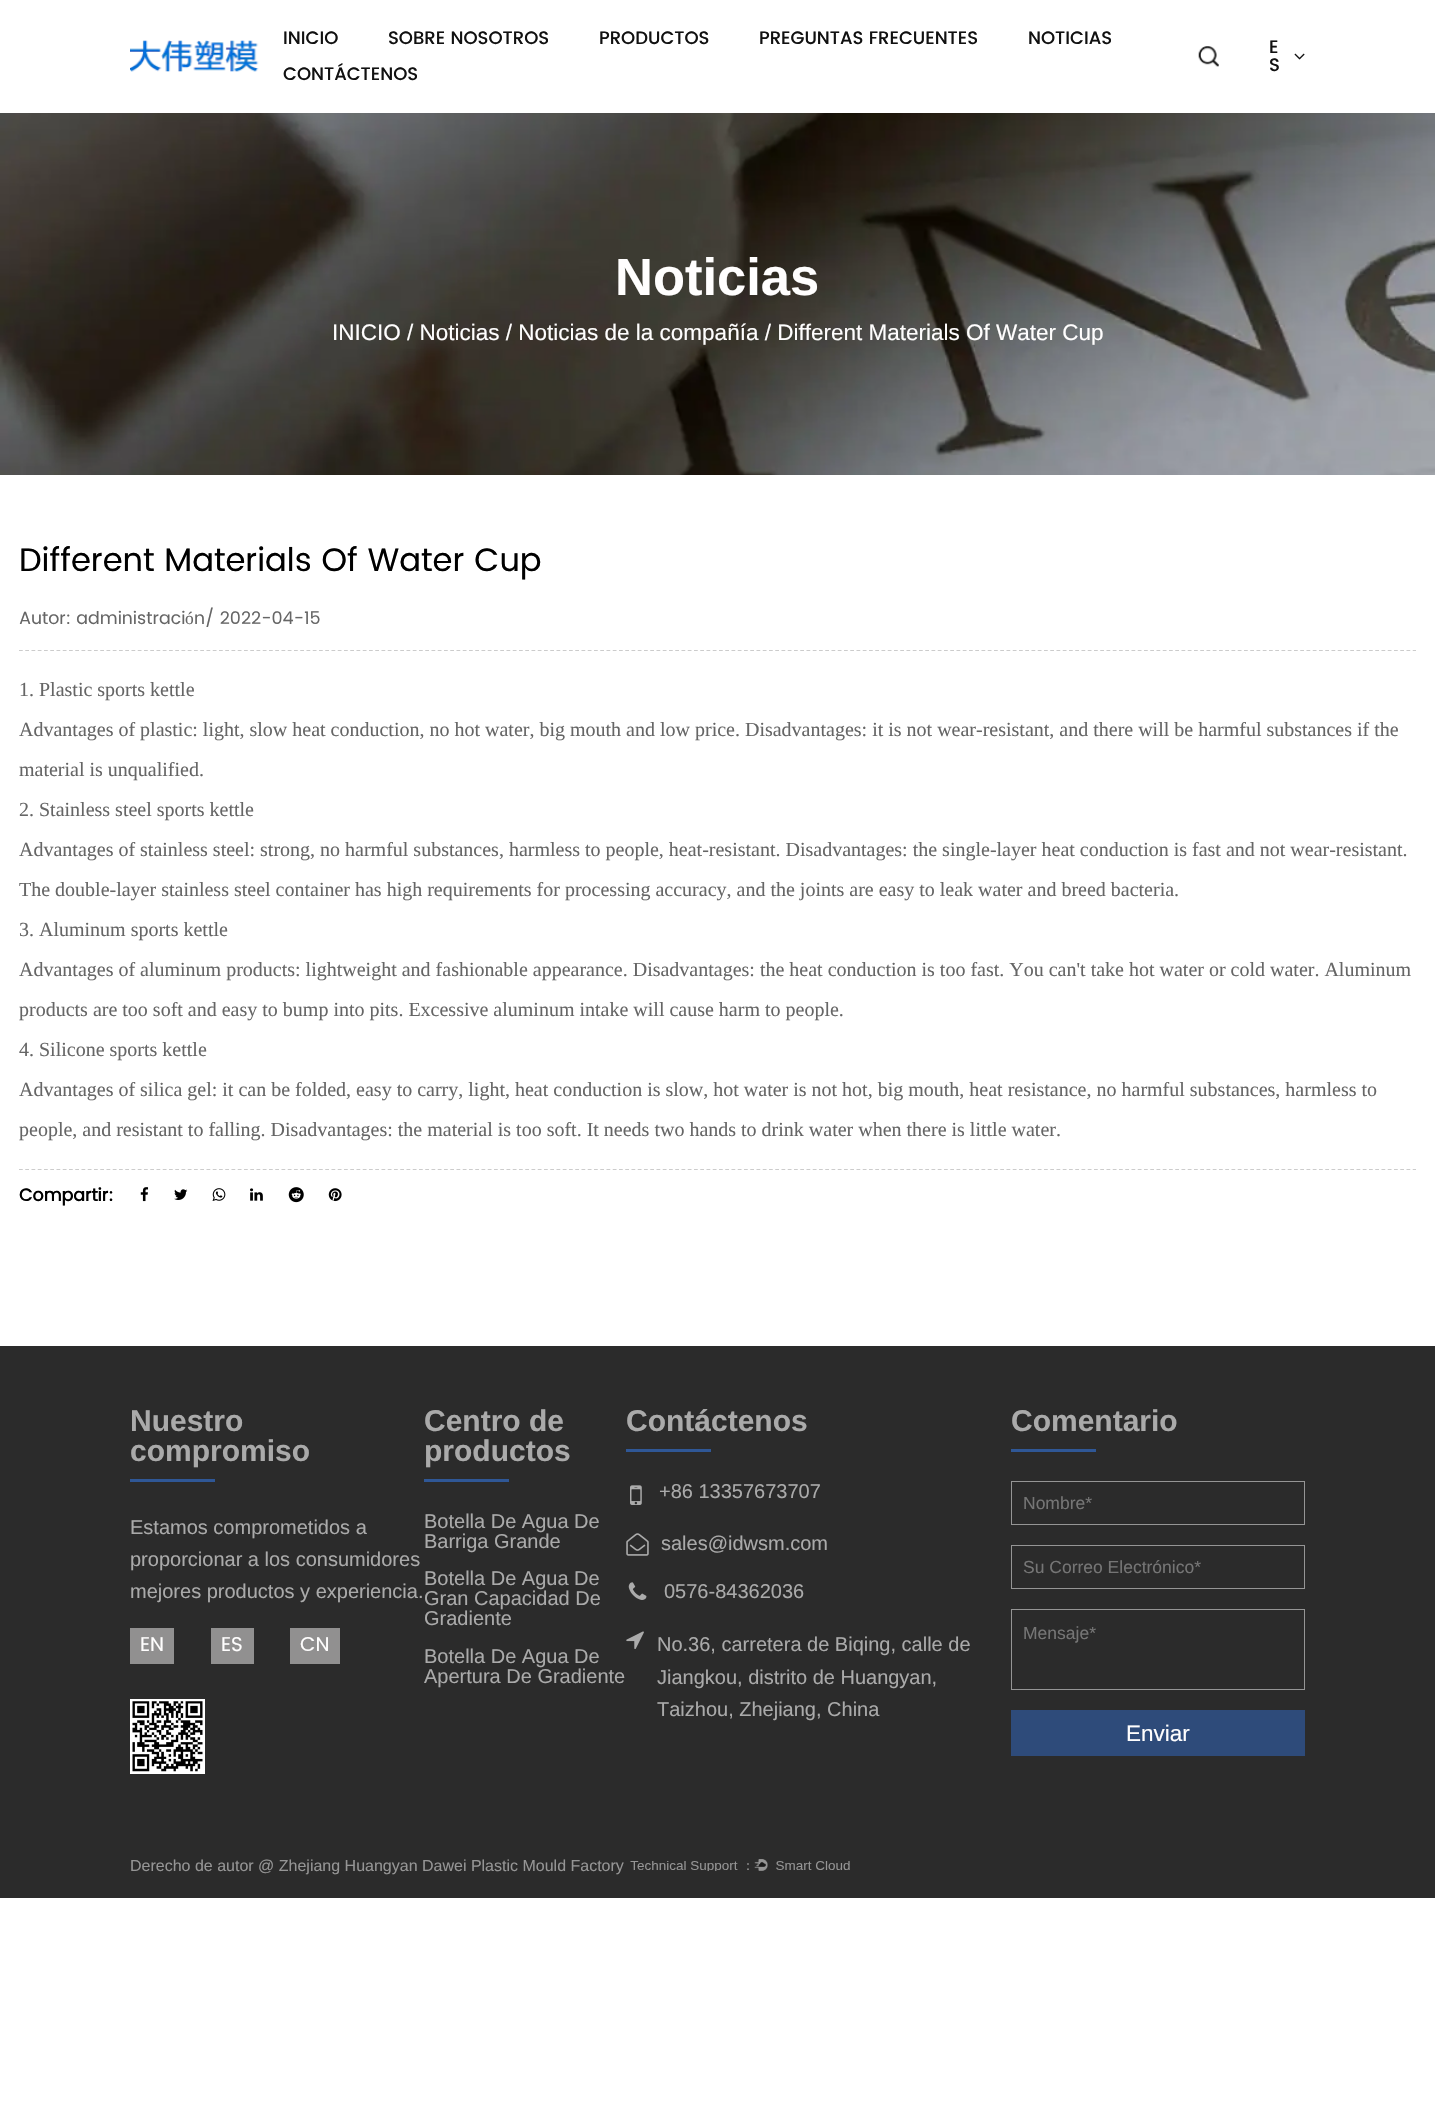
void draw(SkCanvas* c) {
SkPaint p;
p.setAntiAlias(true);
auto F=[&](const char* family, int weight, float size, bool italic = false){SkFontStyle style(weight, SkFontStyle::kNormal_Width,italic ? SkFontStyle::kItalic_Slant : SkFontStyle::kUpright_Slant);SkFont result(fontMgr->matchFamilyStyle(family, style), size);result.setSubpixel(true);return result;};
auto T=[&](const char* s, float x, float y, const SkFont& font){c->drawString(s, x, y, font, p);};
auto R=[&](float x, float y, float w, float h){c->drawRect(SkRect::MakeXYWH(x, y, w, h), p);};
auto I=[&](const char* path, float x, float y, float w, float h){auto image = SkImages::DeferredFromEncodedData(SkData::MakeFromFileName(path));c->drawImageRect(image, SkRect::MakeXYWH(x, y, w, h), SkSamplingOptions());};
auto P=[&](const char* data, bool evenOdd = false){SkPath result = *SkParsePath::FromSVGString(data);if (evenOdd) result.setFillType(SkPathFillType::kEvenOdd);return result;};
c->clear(0xffffffff);
I("1.png",130,40,129,32);
auto f1 = F("Poppins",500,18);
p.setColor(0xff111111);
T("INICIO",283,44,f1);
T("SOBRE NOSOTROS",388,44,f1);
T("PRODUCTOS",599,44,f1);
T("PREGUNTAS FRECUENTES",759,44,f1);
T("NOTICIAS",1028,44,f1);
T("CONTÁCTENOS",283,80,f1);
I("2.png",1198,46,21,21);
T("E",1269,53,f1);
I("3.png",1294,53,11,7);
T("S",1269,71,f1);
I("4.png",0,113,1435,362);
auto f2 = F("Liberation Sans",700,52.5);
p.setColor(0xfffffefe);
T("Noticias",615,295,f2);
auto f3 = F("Liberation Sans",400,22.5);
T("INICIO / Noticias / Noticias de la compañía / Different Materials Of Water Cup",332,340,f3);
auto f4 = F("Poppins",400,32.5);
p.setColor(0xff000000);
T("Different Materials Of Water Cup",19,571,f4);
auto f5 = F("Poppins",400,17.5);
p.setColor(0xff666666);
T("Autor: administraci",19,624,f5);
auto f6 = F("Liberation Serif",400,17.5);
T("ó",185,624,f6);
T("n/ 2022-04-15",194,624,f5);
p.setStroke(true);
p.setStrokeWidth(1.2);
p.setColor(0xffcccccc);
p.setPathEffect(SkDashPathEffect::Make({{3.75f,2.5f}}, 0));
c->drawPath(P("M19 650.5h1397"),p);
p.setPathEffect(nullptr);
p.setPathEffect(SkDashPathEffect::Make({{3.75f,2.5f}}, 0));
c->drawPath(P("M19 1169.5h1397"),p);
p.setPathEffect(nullptr);
auto f7 = F("Liberation Serif",400,20);
p.setStroke(false);
p.setColor(0xff666666);
T("1. Plastic sports kettle",19,696,f7);
T("Advantages of plastic: light, slow heat conduction, no hot water, big mouth and low price. Disadvantages: it is not wear-resistant, and there will be harmful substances if the",19,736,f7);
T("material is unqualified.",19,776,f7);
T("2. Stainless steel sports kettle",19,816,f7);
T("Advantages of stainless steel: strong, no harmful substances, harmless to people, heat-resistant. Disadvantages: the single-layer heat conduction is fast and not wear-resistant.",19,856,f7);
T("The double-layer stainless steel container has high requirements for processing accuracy, and the joints are easy to leak water and breed bacteria.",19,896,f7);
T("3. Aluminum sports kettle",19,936,f7);
T("Advantages of aluminum products: lightweight and fashionable appearance. Disadvantages: the heat conduction is too fast. You can't take hot water or cold water. Aluminum",19,976,f7);
T("products are too soft and easy to bump into pits. Excessive aluminum intake will cause harm to people.",19,1016,f7);
T("4. Silicone sports kettle",19,1056,f7);
T("Advantages of silica gel: it can be folded, easy to carry, light, heat conduction is slow, hot water is not hot, big mouth, heat resistance, no harmful substances, harmless to",19,1096,f7);
T("people, and resistant to falling. Disadvantages: the material is too soft. It needs two hands to drink water when there is little water.",19,1136,f7);
auto f8 = F("Poppins",700,17.5);
p.setColor(0xff000000);
T("Compartir:",19,1201,f8);
I("5.png",140,1187,9,15);
I("6.png",174,1189,14,11);
I("7.png",212,1188,14,13);
I("8.png",250,1188,13,13);
I("9.png",288,1187,16,16);
I("10.png",328,1188,14,14);
p.setColor(0xff2b2b2b);
R(0,1346,1435,552);
auto f9 = F("Liberation Sans",700,30);
p.setColor(0xffaaaaaa);
T("Nuestro",130,1431,f9);
T("compromiso",130,1461,f9);
p.setColor(0xff2f5796);
R(130,1479,85,3);
auto f10 = F("Liberation Sans",400,20);
p.setColor(0xffaaaaaa);
T("Estamos comprometidos a",130,1534,f10);
T("proporcionar a los consumidores",130,1566,f10);
T("mejores productos y experiencia.",130,1598,f10);
p.setColor(0xff919090);
R(130,1628,44,36);
auto f11 = F("Poppins",400,20);
p.setColor(0xfffffefe);
T("EN",140,1651,f11);
p.setColor(0xff919090);
R(211,1628,43,36);
p.setColor(0xfffffefe);
T("ES",221,1651,f11);
p.setColor(0xff919090);
R(290,1628,50,36);
p.setColor(0xfffffefe);
T("CN",300,1651,f11);
p.setStroke(true);
p.setStrokeWidth(3);
p.setColor(0xffffffff);
c->drawRect(SkRect::MakeXYWH(131.5,1700.5,72,72),p);
I("11.png",132,1701,71,71);
p.setStroke(false);
p.setColor(0xffaaaaaa);
T("Centro de",424,1431,f9);
T("productos",424,1461,f9);
p.setColor(0xff2f5796);
R(424,1479,85,3);
p.setColor(0xffaaaaaa);
T("Botella De Agua De",424,1528,f10);
T("Barriga Grande",424,1548,f10);
T("Botella De Agua De",424,1585,f10);
T("Gran Capacidad De",424,1605,f10);
T("Gradiente",424,1625,f10);
T("Botella De Agua De",424,1663,f10);
T("Apertura De Gradiente",424,1683,f10);
T("Contáctenos",626,1431,f9);
p.setColor(0xff2f5796);
R(626,1449,85,3);
I("12.png",630,1485,12,20);
p.setColor(0xffaaaaaa);
T("+86 13357673707",659,1498,f10);
I("13.png",626,1533,23,23);
T("sales@idwsm.com",661,1550,f10);
I("14.png",628,1582,19,18);
T("0576-84362036",664,1598,f10);
I("15.png",626,1631,18,18);
T("No.36, carretera de Biqing, calle de",657,1651,f10);
T("Jiangkou, distrito de Huangyan,",657,1684,f10);
T("Taizhou, Zhejiang, China",657,1716,f10);
T("Comentario",1011,1431,f9);
p.setColor(0xff2f5796);
R(1011,1449,85,3);
p.setStroke(true);
p.setStrokeWidth(1);
p.setColor(0xff959595);
c->drawRect(SkRect::MakeXYWH(1011.5,1481.5,293,43),p);
auto f12 = F("Liberation Sans",400,17.5);
p.setStroke(false);
p.setColor(0xff757575);
T("Nombre*",1023,1509,f12);
p.setStroke(true);
p.setColor(0xff959595);
c->drawRect(SkRect::MakeXYWH(1011.5,1545.5,293,43),p);
p.setStroke(false);
p.setColor(0xff757575);
T("Su Correo Electrónico*",1023,1573,f12);
p.setStroke(true);
p.setColor(0xff959595);
c->drawRect(SkRect::MakeXYWH(1011.5,1609.5,293,80),p);
p.setStroke(false);
p.setColor(0xff757575);
T("Mensaje*",1023,1639,f12);
p.setColor(0xff2e4b7a);
R(1011,1710,294,46);
p.setColor(0xfffffefe);
T("Enviar",1126,1741,f3);
auto f13 = F("Liberation Sans",400,16);
p.setColor(0xff959595);
T("Derecho de autor @ Zhejiang Huangyan Dawei Plastic Mould Factory",130,1871,f13);
I("16.png",630,1859,220,12);
}
